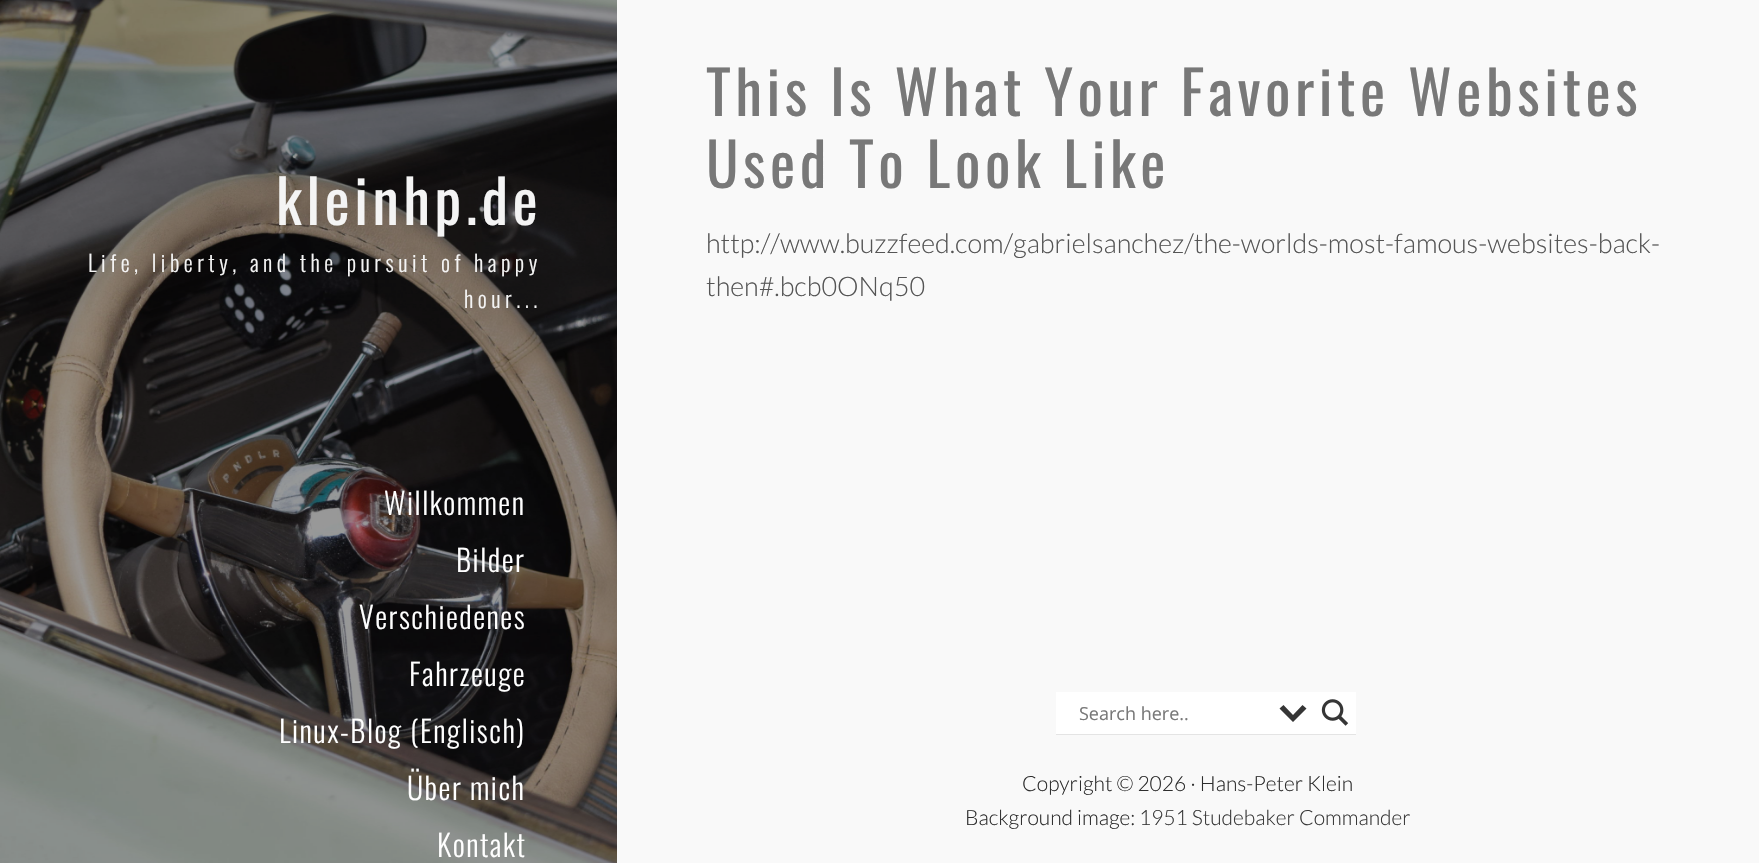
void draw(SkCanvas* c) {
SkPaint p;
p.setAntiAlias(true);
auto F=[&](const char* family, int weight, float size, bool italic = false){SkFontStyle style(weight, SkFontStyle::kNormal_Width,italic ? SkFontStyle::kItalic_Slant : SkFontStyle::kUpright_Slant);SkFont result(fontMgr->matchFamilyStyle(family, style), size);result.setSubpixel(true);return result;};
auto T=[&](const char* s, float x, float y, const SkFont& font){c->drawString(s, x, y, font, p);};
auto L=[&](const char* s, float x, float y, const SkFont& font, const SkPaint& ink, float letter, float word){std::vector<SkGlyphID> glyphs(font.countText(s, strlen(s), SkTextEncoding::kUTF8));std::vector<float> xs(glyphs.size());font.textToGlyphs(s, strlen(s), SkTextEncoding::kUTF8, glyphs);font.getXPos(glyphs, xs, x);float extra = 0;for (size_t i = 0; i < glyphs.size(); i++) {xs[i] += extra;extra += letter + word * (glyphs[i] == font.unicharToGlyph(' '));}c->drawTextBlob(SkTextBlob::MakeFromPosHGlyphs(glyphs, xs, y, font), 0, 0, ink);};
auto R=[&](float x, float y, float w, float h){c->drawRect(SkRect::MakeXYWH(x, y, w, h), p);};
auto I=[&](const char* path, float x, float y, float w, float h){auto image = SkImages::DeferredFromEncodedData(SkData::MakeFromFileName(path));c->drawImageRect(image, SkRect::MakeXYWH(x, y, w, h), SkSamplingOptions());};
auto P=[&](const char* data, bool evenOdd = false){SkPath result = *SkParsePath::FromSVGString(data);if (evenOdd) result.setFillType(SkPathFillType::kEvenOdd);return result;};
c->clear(0xfff9f9f9);
I("1.png",0,0,617,863);
auto f1 = F("Oswald",400,60);
p.setColor(0xfff4f4f4);
L("kleinhp.de",276,225,f1,p,4.5,0);
auto f2 = F("Oswald",300,22.5);
L("Life, liberty, and the pursuit of happy",88,272,f2,p,4.5,0);
L("hour...",464,308,f2,p,4.5,0);
auto f3 = F("Oswald",300,30);
p.setColor(0xffffffff);
L("Willkommen",384,515,f3,p,1.5,0);
L("Bilder",456,572,f3,p,1.5,0);
L("Verschiedenes",359,629,f3,p,1.5,0);
L("Fahrzeuge",409,686,f3,p,1.5,0);
L("Linux-Blog (Englisch)",279,743,f3,p,1.5,0);
L("Über mich",407,800,f3,p,1.5,0);
L("Kontakt",437,857,f3,p,1.5,0);
p.setColor(0xff787878);
L("This Is What Your Favorite Websites",706,116,f1,p,4.5,0);
L("Used To Look Like",706,188,f1,p,4.5,0);
auto f4 = F("Lato",300,27);
p.setColor(0xff555555);
T("http://www.buzzfeed.com/gabrielsanchez/the-worlds-most-famous-websites-back-",706,253,f4);
T("then#.bcb0ONq50",706,296,f4);
p.setColor(0xffe4e4e4);
R(1056,734,300,1);
p.setColor(0xffffffff);
R(1056,692,300,42);
auto f5 = F("Open Sans",400,18);
p.setColor(0xff787878);
T("Search here..",1079,720,f5);
p.setColor(0xff363636);
c->drawPath(P("M1302.5 705l4 3.5l-13.5 13.5l-13.5-13.5l4-3.5l9.5 10z"),p);
I("2.png",1321,699,28,27);
auto f6 = F("Lato",300,21);
p.setColor(0xff2d2d2d);
T("Copyright © 2026 · Hans-Peter Klein",1022,791,f6);
T("Background image:",965,825,f6);
p.setColor(0xff383838);
T("1951 Studebaker Commander",1139,825,f6);
}
